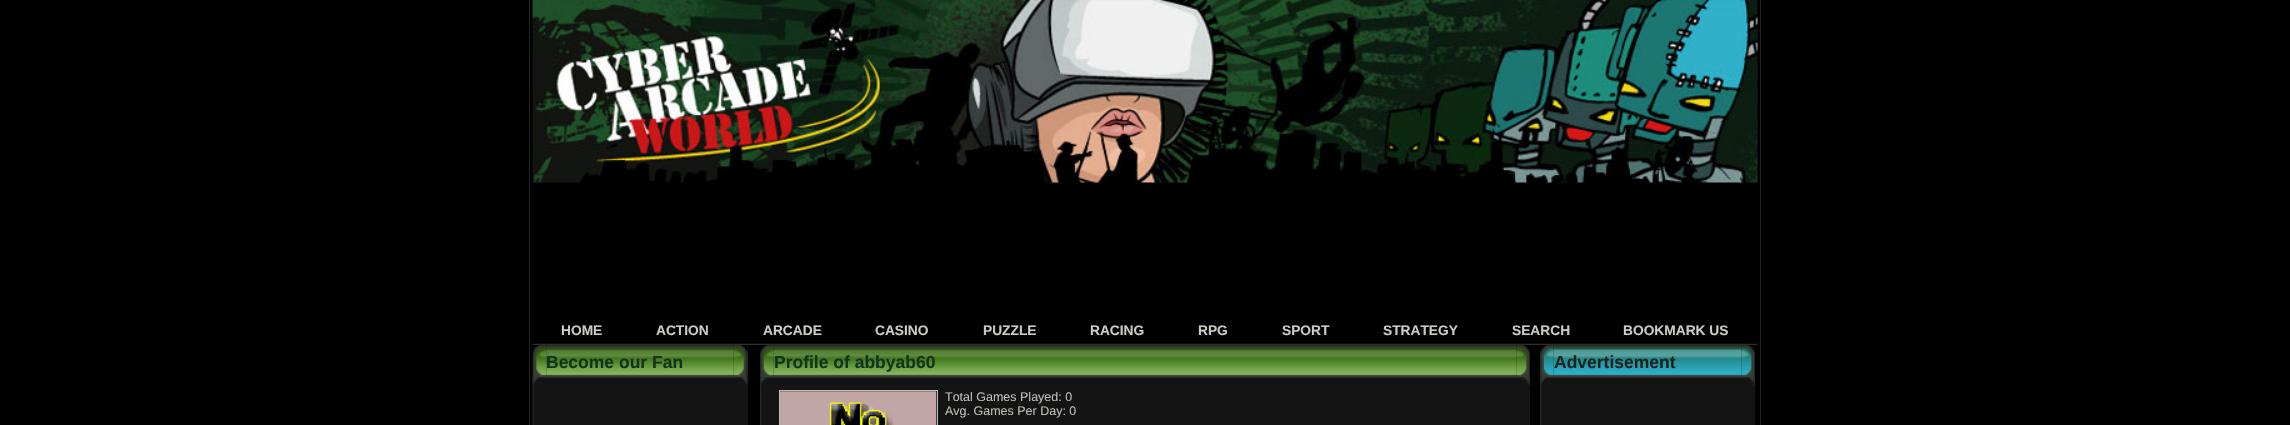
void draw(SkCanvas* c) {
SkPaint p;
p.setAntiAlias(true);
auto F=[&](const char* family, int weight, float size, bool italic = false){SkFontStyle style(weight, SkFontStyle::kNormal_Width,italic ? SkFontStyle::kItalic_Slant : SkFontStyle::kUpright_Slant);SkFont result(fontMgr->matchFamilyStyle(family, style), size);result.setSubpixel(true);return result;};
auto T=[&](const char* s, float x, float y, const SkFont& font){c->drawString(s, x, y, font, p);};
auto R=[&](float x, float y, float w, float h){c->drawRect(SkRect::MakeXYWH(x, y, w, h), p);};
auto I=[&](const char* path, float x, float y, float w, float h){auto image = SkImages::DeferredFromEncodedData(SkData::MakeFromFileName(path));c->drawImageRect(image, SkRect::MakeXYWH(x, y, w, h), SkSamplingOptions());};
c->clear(0xff000000);
p.setColor(0xff222222);
R(1760,0,1,425);
R(529,0,1,425);
I("1.png",532,0,1226,185);
I("2.png",532,343,1226,2);
auto f1 = F("Liberation Sans",700,13.75);
p.setColor(0xffc8cdc4);
T("HOME",561,335,f1);
T("ACTION",656,335,f1);
T("ARCADE",763,335,f1);
T("CASINO",875,335,f1);
T("PUZZLE",983,335,f1);
T("RACING",1090,335,f1);
T("RPG",1198,335,f1);
T("SPORT",1282,335,f1);
T("STRATEGY",1383,335,f1);
T("SEARCH",1512,335,f1);
T("BOOKMARK US",1623,335,f1);
p.setColor(0xff141414);
R(533,345,215,80);
I("4.png",546,345,188,33);
I("6.png",532,377,2,10);
I("3.png",532,345,15,33);
auto f2 = F("Liberation Sans",700,17.5);
p.setColor(0xff13341b);
T("Become our Fan",546,368,f2);
I("5.png",733,345,15,33);
I("7.png",532,377,8,8);
I("8.png",740,377,8,8);
I("9.png",532,386,2,39);
p.setColor(0xff141414);
R(760,345,770,80);
I("11.png",773,345,744,33);
I("13.png",760,377,2,10);
I("10.png",760,345,14,33);
p.setColor(0xff13341b);
T("Profile of abbyab60",774,368,f2);
I("12.png",1516,345,14,33);
I("14.png",761,377,7,7);
I("15.png",1522,377,8,8);
I("16.png",760,386,2,39);
p.setStroke(true);
p.setStrokeWidth(1);
p.setColor(0xffbbbfb7);
c->drawRect(SkRect::MakeXYWH(779.5,390.5,158,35),p);
I("17.png",780,391,157,34);
auto f3 = F("Liberation Sans",400,12.5);
p.setStroke(false);
T("Total Games Played: 0",945,401,f3);
T("Avg. Games Per Day: 0",945,415,f3);
p.setColor(0xff141414);
R(1540,345,215,80);
I("19.png",1553,345,189,33);
I("13.png",1540,377,2,10);
I("18.png",1540,345,14,33);
p.setColor(0xff1d2323);
T("Advertisement",1554,368,f2);
I("20.png",1741,345,14,33);
I("14.png",1541,377,7,7);
I("15.png",1747,377,8,8);
I("16.png",1540,386,2,39);
}
